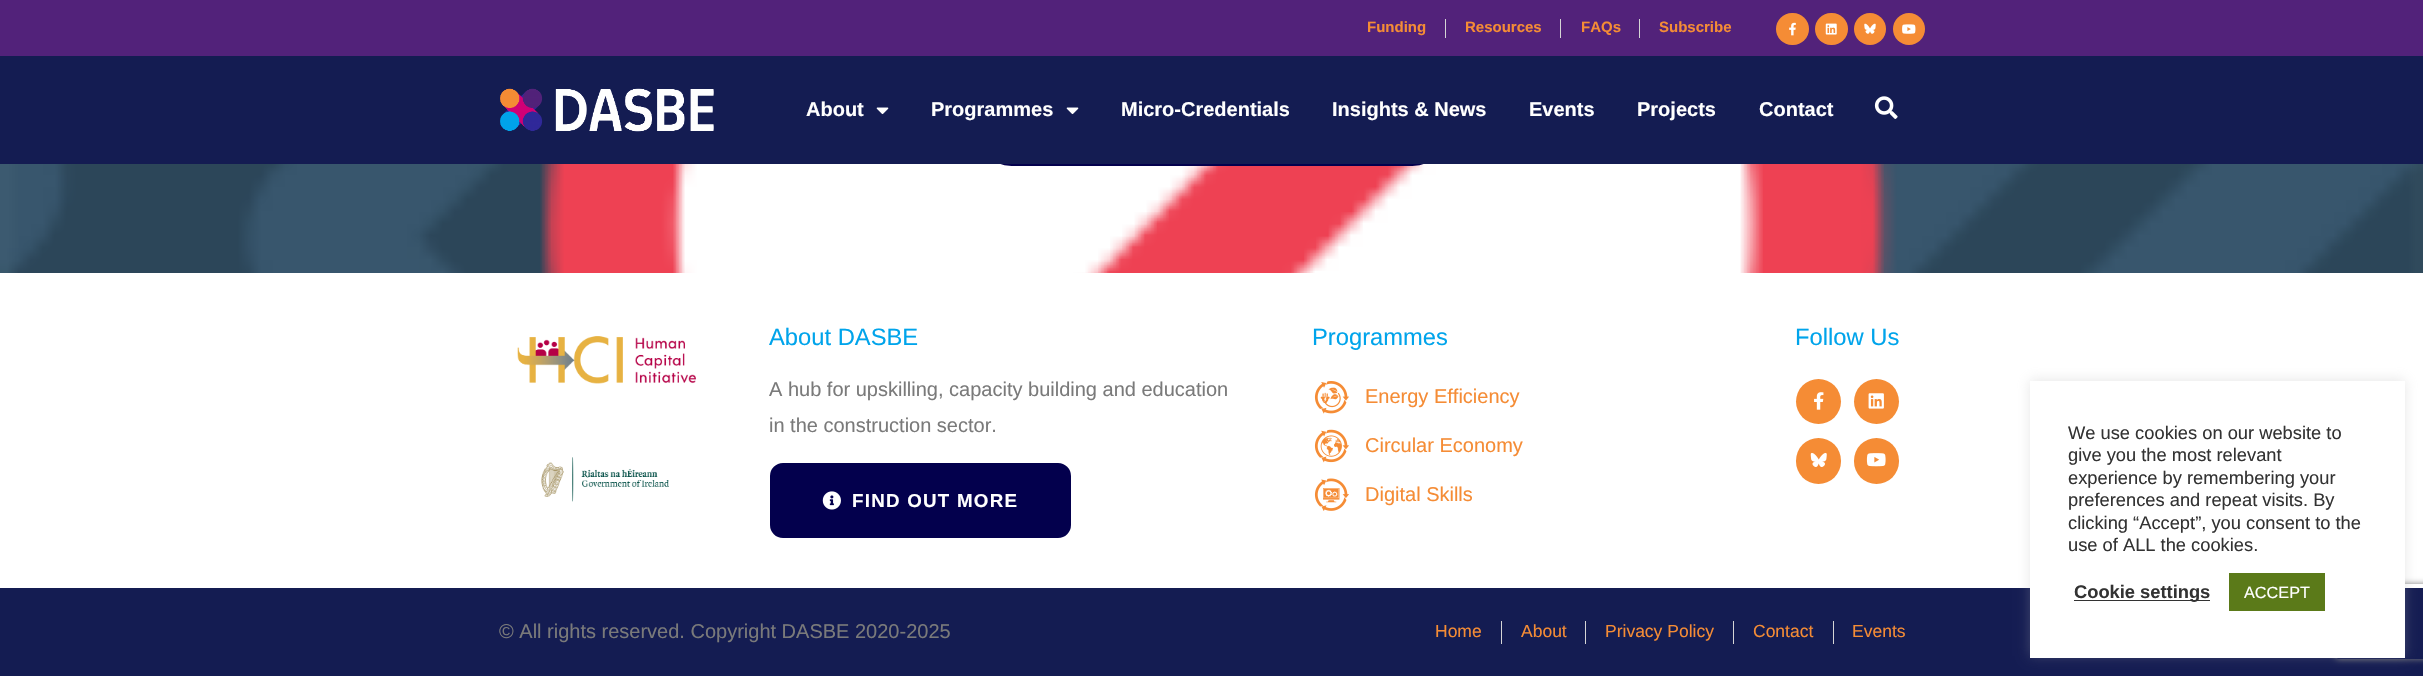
void draw(SkCanvas* c) {
SkPaint p;
p.setAntiAlias(true);
auto F=[&](const char* family, int weight, float size, bool italic = false){SkFontStyle style(weight, SkFontStyle::kNormal_Width,italic ? SkFontStyle::kItalic_Slant : SkFontStyle::kUpright_Slant);SkFont result(fontMgr->matchFamilyStyle(family, style), size);result.setSubpixel(true);return result;};
auto T=[&](const char* s, float x, float y, const SkFont& font){c->drawString(s, x, y, font, p);};
auto L=[&](const char* s, float x, float y, const SkFont& font, const SkPaint& ink, float letter, float word){std::vector<SkGlyphID> glyphs(font.countText(s, strlen(s), SkTextEncoding::kUTF8));std::vector<float> xs(glyphs.size());font.textToGlyphs(s, strlen(s), SkTextEncoding::kUTF8, glyphs);font.getXPos(glyphs, xs, x);float extra = 0;for (size_t i = 0; i < glyphs.size(); i++) {xs[i] += extra;extra += letter + word * (glyphs[i] == font.unicharToGlyph(' '));}c->drawTextBlob(SkTextBlob::MakeFromPosHGlyphs(glyphs, xs, y, font), 0, 0, ink);};
auto R=[&](float x, float y, float w, float h){c->drawRect(SkRect::MakeXYWH(x, y, w, h), p);};
auto Q=[&](float x, float y, float w, float h, float radius){c->drawRoundRect(SkRect::MakeXYWH(x, y, w, h), radius, radius, p);};
auto I=[&](const char* path, float x, float y, float w, float h){auto image = SkImages::DeferredFromEncodedData(SkData::MakeFromFileName(path));c->drawImageRect(image, SkRect::MakeXYWH(x, y, w, h), SkSamplingOptions());};
auto P=[&](const char* data, bool evenOdd = false){SkPath result = *SkParsePath::FromSVGString(data);if (evenOdd) result.setFillType(SkPathFillType::kEvenOdd);return result;};
c->clear(0xffffffff);
p.setColor(0xff52227a);
R(0,0,2423,56);
auto f1 = F("Liberation Sans",700,15);
p.setColor(0xfff58c35);
T("Funding",1367,32,f1);
p.setColor(0xffd5d5d5);
R(1445,19,1,19);
p.setColor(0xfff58c35);
T("Resources",1465,32,f1);
p.setColor(0xffd5d5d5);
R(1560,19,1,19);
p.setColor(0xfff58c35);
T("FAQs",1581,32,f1);
p.setColor(0xffd5d5d5);
R(1639,19,1,19);
p.setColor(0xfff58c35);
T("Subscribe",1659,32,f1);
Q(1776,13,33,32,16);
I("1.png",1789,22,7,14);
Q(1815,13,33,32,16);
I("2.png",1825,23,12,12);
c->drawCircle(1870,29,16,p);
I("3.png",1864,23,12,11);
c->drawCircle(1909,29,16,p);
I("4.png",1902,24,14,10);
I("8.png",0,164,2423,109);
p.setStroke(true);
p.setStrokeWidth(3);
p.setColor(0xff03004d);
c->drawRoundRect(SkRect::MakeXYWH(977.5,96.5,469,68),34,34,p);
p.setStroke(false);
p.setColor(0xff141c52);
R(0,56,2423,108);
I("5.png",500,88,214,44);
auto f2 = F("Liberation Sans",700,20);
p.setColor(0xffffffff);
T("About",806,116,f2);
I("6.png",876,107,13,8);
T("Programmes",931,116,f2);
I("6.png",1066,107,13,8);
T("Micro-Credentials",1121,116,f2);
T("Insights & News",1332,116,f2);
T("Events",1529,116,f2);
T("Projects",1637,116,f2);
T("Contact",1759,116,f2);
I("7.png",1874,96,24,23);
I("9.png",517,336,179,48);
I("10.png",541,457,128,45);
auto f3 = F("Liberation Sans",400,23.75);
p.setColor(0xff00a4eb);
T("About DASBE",769,345,f3);
auto f4 = F("Liberation Sans",400,20);
p.setColor(0xff7a7a7a);
T("A hub for upskilling, capacity building and education",769,396,f4);
T("in the construction sector.",769,432,f4);
p.setColor(0xff03004d);
c->drawRoundRect(SkRect::MakeXYWH(771.5,464.5,298,72),11.5,11.5,p);
p.setStroke(true);
c->drawRoundRect(SkRect::MakeXYWH(771.5,464.5,298,72),11.5,11.5,p);
I("11.png",822,491,19,19);
auto f5 = F("Liberation Sans",700,18.75);
p.setStroke(false);
p.setColor(0xffffffff);
L("FIND OUT MORE",852,507,f5,p,1.25,0);
p.setColor(0xff00a4eb);
T("Programmes",1312,345,f3);
I("12.png",1314,381,35,33);
p.setColor(0xfff58c35);
T("Energy Efficiency",1365,403,f4);
I("13.png",1314,429,35,34);
T("Circular Economy",1365,452,f4);
I("14.png",1314,478,35,33);
T("Digital Skills",1365,501,f4);
p.setColor(0xff00a4eb);
T("Follow Us",1795,345,f3);
p.setColor(0xfff58c35);
c->drawCircle(1818.5,401.5,22.5,p);
I("15.png",1814,392,10,18);
c->drawCircle(1876.5,401.5,22.5,p);
I("16.png",1868,393,16,16);
Q(1796,438,45,46,22.5);
I("17.png",1810,452,17,15);
Q(1854,438,45,46,22.5);
I("18.png",1866,453,20,14);
p.setColor(0xff141c52);
R(0,588,2423,88);
p.setColor(0xff7a7a7a);
T("© All rights reserved. Copyright DASBE 2020-2025",499,638,f4);
auto f6 = F("Liberation Sans",400,17.5);
p.setColor(0xfff58c35);
T("Home",1435,637,f6);
p.setColor(0xffd5d5d5);
R(1501,621,1,23);
p.setColor(0xfff58c35);
T("About",1521,637,f6);
p.setColor(0xffd5d5d5);
R(1585,621,1,23);
p.setColor(0xfff58c35);
T("Privacy Policy",1605,637,f6);
p.setColor(0xffd5d5d5);
R(1733,621,1,23);
p.setColor(0xfff58c35);
T("Contact",1753,637,f6);
p.setColor(0xffd5d5d5);
R(1833,621,1,23);
p.setColor(0xfff58c35);
T("Events",1852,637,f6);
p.setColor(0x4dacabab);
p.setMaskFilter(SkMaskFilter::MakeBlur(kNormal_SkBlurStyle, 6));
c->drawRect(SkRect::MakeXYWH(2030,380,375,276),p);
p.setMaskFilter(nullptr);
c->save();
c->clipPath(P("M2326 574h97v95h-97zm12.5 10h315c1.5 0 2.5 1 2.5 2.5v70c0 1.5-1 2.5-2.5 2.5h-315c-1.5 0-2.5-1-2.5-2.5v-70c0-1.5 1-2.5 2.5-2.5z",true),true);
p.setColor(0xff808080);
p.setMaskFilter(SkMaskFilter::MakeBlur(kNormal_SkBlurStyle, 3));
c->drawRoundRect(SkRect::MakeXYWH(2336,584,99,75),2.5,2.5,p);
p.setMaskFilter(nullptr);
c->restore();
p.setColor(0xffffffff);
R(2030,381,375,277);
auto f7 = F("Liberation Sans",400,18.3);
p.setColor(0xff333333);
T("We use cookies on our website to",2068,439,f7);
T("give you the most relevant",2068,461,f7);
T("experience by remembering your",2068,484,f7);
T("preferences and repeat visits. By",2068,506,f7);
T("clicking “Accept”, you consent to the",2068,529,f7);
T("use of ALL the cookies.",2068,551,f7);
R(2074,600,136,1);
auto f8 = F("Liberation Sans",700,18.3);
T("Cookie settings",2074,598,f8);
p.setColor(0xff5b7a19);
R(2229,573,96,38);
auto f9 = F("Liberation Sans",400,16.25);
p.setColor(0xffffffff);
T("ACCEPT",2244,598,f9);
}
